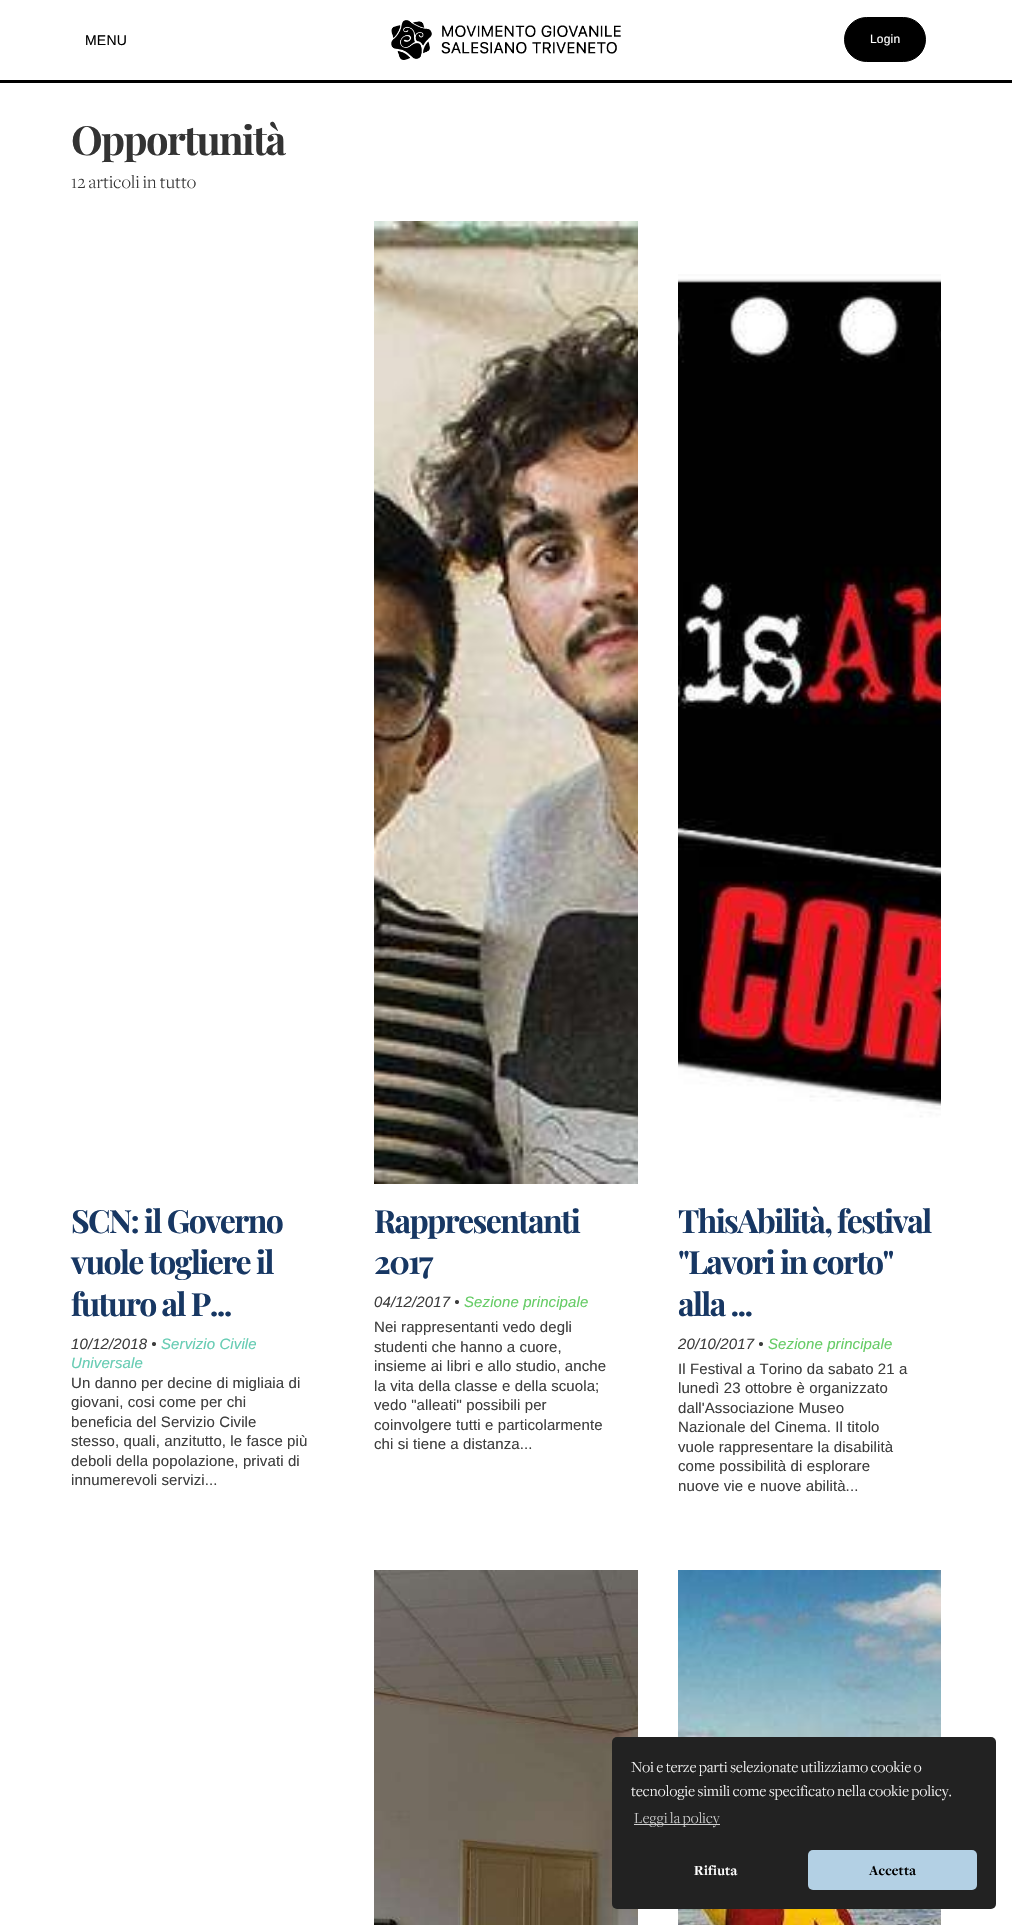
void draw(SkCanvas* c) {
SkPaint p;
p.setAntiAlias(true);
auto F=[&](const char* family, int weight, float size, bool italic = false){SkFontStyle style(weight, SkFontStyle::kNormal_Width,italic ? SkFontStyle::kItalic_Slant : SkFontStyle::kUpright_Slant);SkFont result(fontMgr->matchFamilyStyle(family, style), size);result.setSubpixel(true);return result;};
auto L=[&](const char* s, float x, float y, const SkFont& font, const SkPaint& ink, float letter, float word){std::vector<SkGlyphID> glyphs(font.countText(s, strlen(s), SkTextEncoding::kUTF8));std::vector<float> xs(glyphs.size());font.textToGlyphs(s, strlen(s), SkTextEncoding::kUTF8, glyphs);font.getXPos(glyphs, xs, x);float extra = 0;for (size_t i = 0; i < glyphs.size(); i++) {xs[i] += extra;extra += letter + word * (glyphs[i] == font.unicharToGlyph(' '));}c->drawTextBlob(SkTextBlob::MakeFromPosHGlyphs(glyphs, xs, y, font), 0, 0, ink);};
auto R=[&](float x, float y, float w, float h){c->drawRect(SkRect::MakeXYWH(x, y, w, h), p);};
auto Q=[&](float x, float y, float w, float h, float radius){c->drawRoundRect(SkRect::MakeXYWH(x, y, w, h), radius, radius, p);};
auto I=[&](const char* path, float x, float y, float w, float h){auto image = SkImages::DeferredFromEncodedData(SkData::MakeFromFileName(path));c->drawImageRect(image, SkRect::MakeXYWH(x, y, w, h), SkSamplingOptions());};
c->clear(0xffffffff);
p.setColor(0xff000000);
R(0,80,1012,3);
auto f1 = F("Liberation Sans",400,14);
L("MENU",85,45,f1,p,.2,0);
I("1.png",391,20,230,40);
c->drawRoundRect(SkRect::MakeXYWH(844.5,17.5,81,44),22,22,p);
p.setStroke(true);
p.setStrokeWidth(1);
c->drawRoundRect(SkRect::MakeXYWH(844.5,17.5,81,44),22,22,p);
auto f2 = F("Liberation Sans",400,12);
p.setStroke(false);
p.setColor(0xffffffff);
L("Login",870,43,f2,p,.2,0);
auto f3 = F("Playfair Display",700,40);
p.setColor(0xff333333);
L("Opportunità",71,155,f3,p,-1.6,0);
auto f4 = F("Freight",300,19.25);
L("12 articoli in tutto",71,188,f4,p,.2,0);
auto f5 = F("Playfair Display",700,32);
p.setColor(0xff173763);
L("SCN: il Governo",71,1233,f5,p,-1.6,0);
L("vuole togliere il",71,1274,f5,p,-1.6,0);
L("futuro al P...",71,1316,f5,p,-1.6,0);
auto f6 = F("Liberation Sans",400,15,true);
p.setColor(0xff3e3e3e);
L("10/12/2018 •",71,1349,f6,p,.1,0);
p.setColor(0xff66ccb3);
L("Servizio Civile",161,1349,f6,p,.1,0);
L("Universale",71,1368,f6,p,.1,0);
auto f7 = F("Liberation Sans",400,15);
p.setColor(0xff3e3e3e);
L("Un danno per decine di migliaia di",71,1388,f7,p,.1,0);
L("giovani, cosi come per chi",71,1407,f7,p,.1,0);
L("beneficia del Servizio Civile",71,1427,f7,p,.1,0);
L("stesso, quali, anzitutto, le fasce più",71,1446,f7,p,.1,0);
L("deboli della popolazione, privati di",71,1466,f7,p,.1,0);
L("innumerevoli servizi...",71,1485,f7,p,.1,0);
I("2.png",374,221,264,963);
p.setColor(0xff173763);
L("Rappresentanti",374,1233,f5,p,-1.6,0);
L("2017",374,1274,f5,p,-1.6,0);
p.setColor(0xff3e3e3e);
L("04/12/2017 •",374,1307,f6,p,.1,0);
p.setColor(0xff66cc66);
L("Sezione principale",464,1307,f6,p,.1,0);
p.setColor(0xff3e3e3e);
L("Nei rappresentanti vedo degli",374,1332,f7,p,.1,0);
L("studenti che hanno a cuore,",374,1352,f7,p,.1,0);
L("insieme ai libri e allo studio, anche",374,1371,f7,p,.1,0);
L("la vita della classe e della scuola;",374,1391,f7,p,.1,0);
L("vedo \"alleati\" possibili per",374,1410,f7,p,.1,0);
L("coinvolgere tutti e particolarmente",374,1430,f7,p,.1,0);
L("chi si tiene a distanza...",374,1449,f7,p,.1,0);
I("3.png",678,274,263,844);
p.setColor(0xff173763);
L("ThisAbilità, festival",678,1233,f5,p,-1.6,0);
L("\"Lavori in corto\"",678,1274,f5,p,-1.6,0);
L("alla ...",678,1316,f5,p,-1.6,0);
p.setColor(0xff3e3e3e);
L("20/10/2017 •",678,1349,f6,p,.1,0);
p.setColor(0xff66cc66);
L("Sezione principale",768,1349,f6,p,.1,0);
p.setColor(0xff3e3e3e);
L("Il Festival a Torino da sabato 21 a",678,1374,f7,p,.1,0);
L("lunedì 23 ottobre è organizzato",678,1393,f7,p,.1,0);
L("dall'Associazione Museo",678,1413,f7,p,.1,0);
L("Nazionale del Cinema. Il titolo",678,1432,f7,p,.1,0);
L("vuole rappresentare la disabilità",678,1452,f7,p,.1,0);
L("come possibilità di esplorare",678,1471,f7,p,.1,0);
L("nuove vie e nuove abilità...",678,1491,f7,p,.1,0);
I("4.png",374,1570,264,355);
I("5.png",678,1570,263,355);
p.setColor(0xff222222);
Q(612,1737,384,172,5);
auto f8 = F("Freight",300,16);
p.setColor(0xffffffff);
L("Noi e terze parti selezionate utilizziamo cookie o",631,1772,f8,p,.2,0);
L("tecnologie simili come specificato nella cookie policy.",631,1796,f8,p,.2,0);
p.setColor(0xffd3d3d3);
R(634,1824,86,1);
L("Leggi la policy",634,1823,f8,p,.2,0);
auto f9 = F("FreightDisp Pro",700,14.5);
p.setColor(0xffffffff);
L("Rifiuta",694,1875,f9,p,.2,0);
p.setColor(0xffb3d0e4);
Q(808,1850,169,40,5);
p.setColor(0xff000000);
L("Accetta",869,1875,f9,p,.2,0);
}
